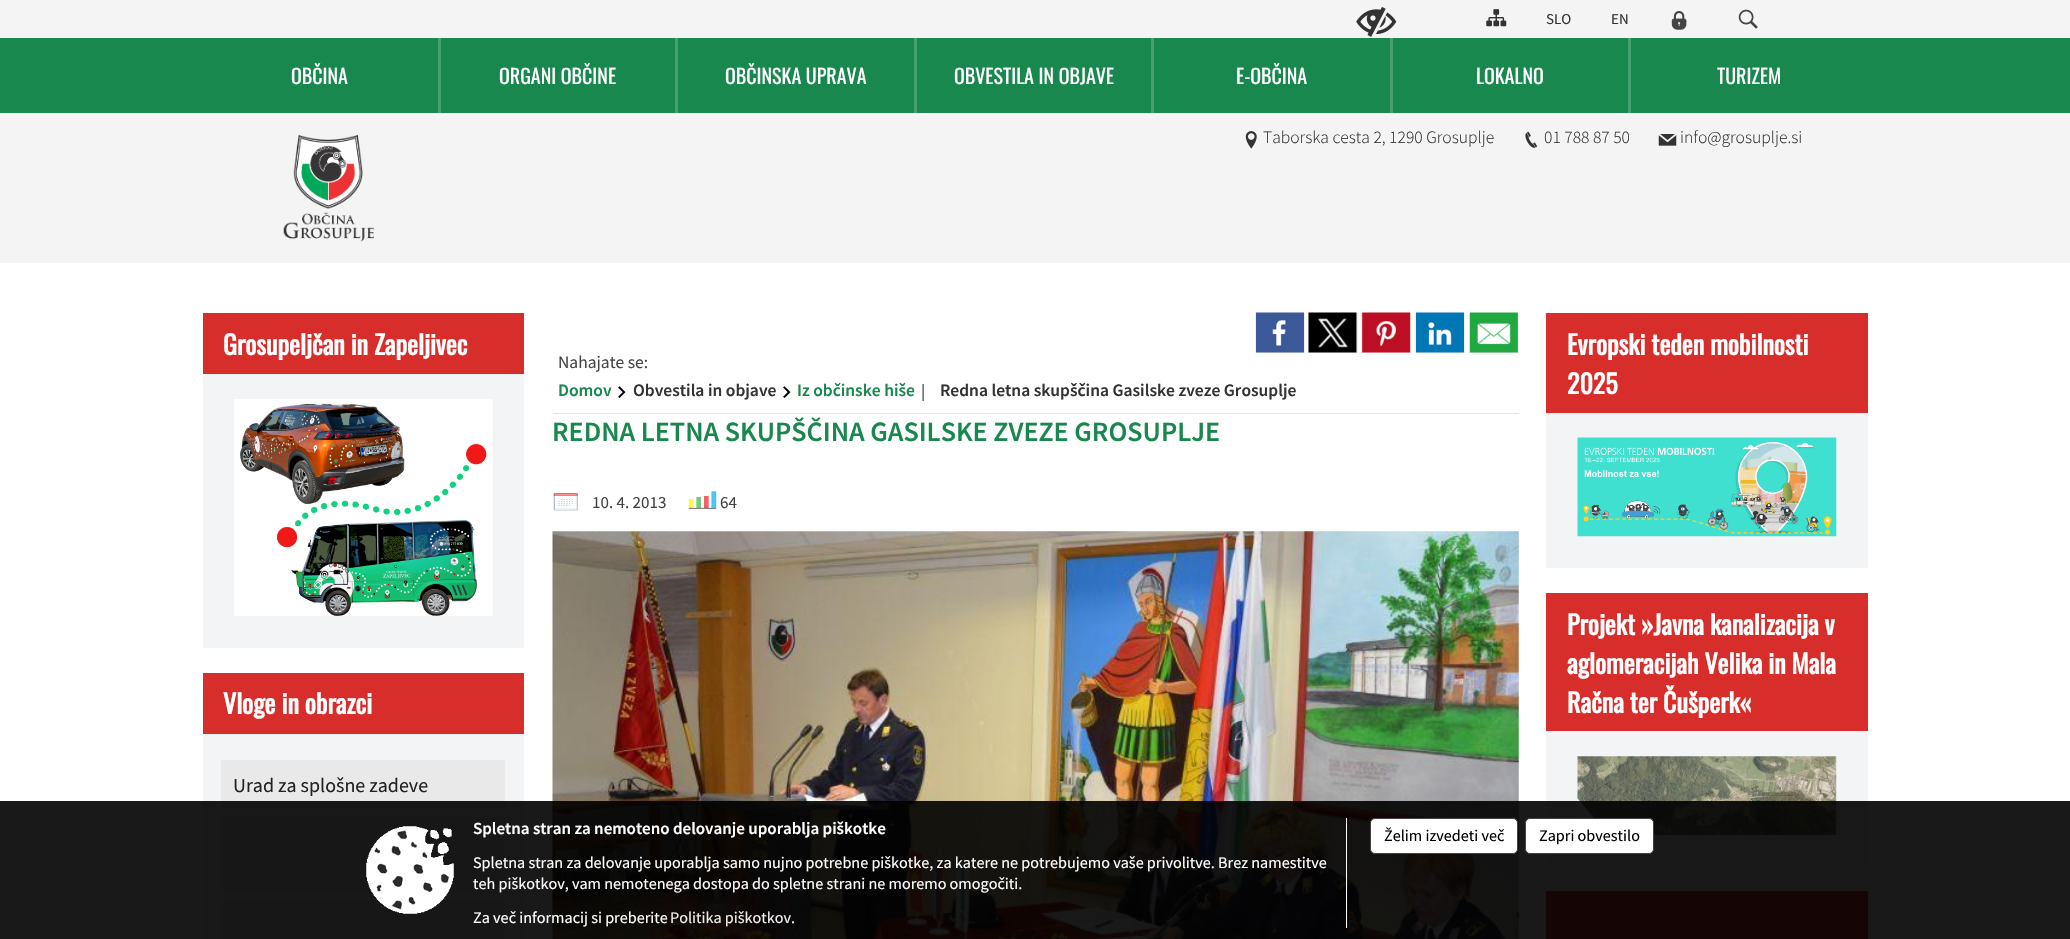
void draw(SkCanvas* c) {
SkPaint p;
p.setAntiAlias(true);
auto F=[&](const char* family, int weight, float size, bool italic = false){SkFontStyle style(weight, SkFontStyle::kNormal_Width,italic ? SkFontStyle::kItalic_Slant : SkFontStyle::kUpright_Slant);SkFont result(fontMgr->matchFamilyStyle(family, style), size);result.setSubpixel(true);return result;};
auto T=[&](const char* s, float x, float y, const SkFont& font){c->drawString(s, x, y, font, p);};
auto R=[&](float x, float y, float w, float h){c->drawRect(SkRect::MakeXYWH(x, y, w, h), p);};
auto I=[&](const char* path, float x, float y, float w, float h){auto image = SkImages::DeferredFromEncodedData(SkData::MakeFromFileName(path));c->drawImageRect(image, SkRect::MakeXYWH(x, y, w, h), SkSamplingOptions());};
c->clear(0xffffffff);
p.setColor(0xfff4f4f4);
R(0,0,2070,263);
I("1.png",1356,7,41,30);
I("2.png",1486,9,21,18);
auto f1 = F("Source Sans Pro",400,15);
p.setColor(0xff333333);
T("SLO",1546,24,f1);
T("EN",1611,24,f1);
I("3.png",1671,11,16,19);
I("4.png",1738,9,20,20);
I("5.png",283,135,91,107);
I("6.png",1245,131,12,18);
auto f2 = F("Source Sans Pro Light",300,17.5);
T("Taborska cesta 2, 1290 Grosuplje",1263,143,f2);
I("7.png",1525,131,13,17);
T("01 788 87 50",1544,143,f2);
I("8.png",1658,134,19,12);
T("info@grosuplje.si",1680,143,f2);
p.setColor(0xff19884e);
R(0,38,2070,75);
p.setColor(0xff47a071);
R(438,38,3,75);
auto f3 = F("Oswald",400,20);
p.setColor(0xffffffff);
T("OBČINA",291,84,f3);
p.setColor(0xff47a071);
R(675,38,3,75);
p.setColor(0xffffffff);
T("ORGANI OBČINE",499,84,f3);
p.setColor(0xff47a071);
R(914,38,3,75);
p.setColor(0xffffffff);
T("OBČINSKA UPRAVA",725,84,f3);
p.setColor(0xff47a071);
R(1151,38,3,75);
p.setColor(0xffffffff);
T("OBVESTILA IN OBJAVE",954,84,f3);
p.setColor(0xff47a071);
R(1390,38,3,75);
p.setColor(0xffffffff);
T("E-OBČINA",1236,84,f3);
p.setColor(0xff47a071);
R(1628,38,3,75);
p.setColor(0xffffffff);
T("LOKALNO",1476,84,f3);
T("TURIZEM",1717,84,f3);
p.setColor(0xfff3f4f5);
R(203,374,321,274);
p.setColor(0xffd72d2b);
R(203,313,321,61);
auto f4 = F("Oswald",700,26);
p.setColor(0xffffffff);
T("Grosupeljčan in Zapeljivec",223,355,f4);
I("9.png",234,399,259,217);
p.setColor(0xfff3f4f5);
R(203,734,321,205);
p.setColor(0xffd72d2b);
R(203,673,321,61);
p.setColor(0xffffffff);
T("Vloge in obrazci",223,714,f4);
p.setColor(0xffe9e9e9);
R(221,760,284,50);
auto f5 = F("Source Sans Pro",400,20);
p.setColor(0xff222222);
T("Urad za splošne zadeve",233,792,f5);
p.setColor(0xffe9e9e9);
R(221,818,284,75);
R(221,900,284,39);
p.setColor(0xfff3f4f5);
R(1546,413,322,155);
p.setColor(0xffd72d2b);
R(1546,313,322,100);
p.setColor(0xffffffff);
T("Evropski teden mobilnosti",1567,355,f4);
T("2025",1567,394,f4);
I("10.png",1577,437,260,100);
p.setColor(0xfff3f4f5);
R(1546,731,322,135);
p.setColor(0xffd72d2b);
R(1546,593,322,138);
p.setColor(0xffffffff);
T("Projekt »Javna kanalizacija v",1567,635,f4);
T("aglomeracijah Velika in Mala",1567,674,f4);
T("Račna ter Čušperk«",1567,713,f4);
I("11.png",1577,756,260,79);
p.setColor(0xffd72d2b);
R(1546,891,322,48);
p.setColor(0xffefefef);
R(1255,313,50,40);
I("12.png",1256,312,48,41);
R(1308,313,50,40);
I("13.png",1308,312,49,41);
R(1361,313,50,40);
I("14.png",1362,312,49,41);
R(1415,313,50,40);
I("15.png",1416,312,48,41);
R(1469,313,50,40);
I("16.png",1469,312,49,41);
p.setColor(0xffe3e4e5);
R(553,413,966,1);
auto f6 = F("Source Sans Pro",400,17.5);
p.setColor(0xff444444);
T("Nahajate se:",558,368,f6);
auto f7 = F("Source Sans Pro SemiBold",600,17.5);
p.setColor(0xff19884e);
T("Domov",558,396,f7);
I("17.png",618,386,8,12);
p.setColor(0xff333333);
T("Obvestila in objave",633,396,f7);
I("17.png",783,386,8,12);
p.setColor(0xff19884e);
T("Iz občinske hiše",797,396,f7);
c->save();
c->clipRect(SkRect::MakeXYWH(919,378,377,23));
auto f8 = F("Liberation Serif",700,20);
p.setColor(0xff666666);
T("|",921,398,f8);
c->restore();
p.setColor(0xff333333);
T("Redna letna skupščina Gasilske zveze Grosuplje",940,396,f7);
auto f9 = F("Source Sans Pro SemiBold",600,28);
p.setColor(0xff19884e);
T("REDNA LETNA SKUPŠČINA GASILSKE ZVEZE GROSUPLJE",552,441,f9);
I("18.png",553,493,25,18);
auto f10 = F("Source Sans Pro",400,17);
p.setColor(0xff444444);
T("10. 4. 2013",592,508,f10);
I("19.png",688,491,29,18);
T("64",720,508,f10);
I("20.png",552,531,967,408);
p.setColor(0xe6000000);
R(0,801,2070,138);
I("21.png",366,826,88,88);
p.setColor(0xffffffff);
R(1346,818,1,110);
auto f11 = F("Source Sans Pro SemiBold",600,17);
T("Spletna stran za nemoteno delovanje uporablja piškotke",473,834,f11);
auto f12 = F("Source Sans Pro",400,16.15);
T("Spletna stran za delovanje uporablja samo nujno potrebne piškotke, za katere ne potrebujemo vaše privolitve. Brez namestitve",473,868,f12);
T("teh piškotkov, vam nemotenega dostopa do spletne strani ne moremo omogočiti.",473,889,f12);
T("Za več informacij si preberite",473,923,f12);
p.setColor(0xffeeeeee);
T("Politika piškotkov",670,923,f12);
p.setColor(0xffffffff);
T(".",791,923,f12);
c->drawRoundRect(SkRect::MakeXYWH(1370.5,818.5,147,35),4.5,4.5,p);
p.setStroke(true);
p.setStrokeWidth(1);
p.setColor(0xff444444);
c->drawRoundRect(SkRect::MakeXYWH(1370.5,818.5,147,35),4.5,4.5,p);
p.setStroke(false);
p.setColor(0xff000000);
T("Želim izvedeti več",1384,841,f12);
p.setColor(0xffffffff);
c->drawRoundRect(SkRect::MakeXYWH(1525.5,818.5,128,35),4.5,4.5,p);
p.setStroke(true);
p.setColor(0xff444444);
c->drawRoundRect(SkRect::MakeXYWH(1525.5,818.5,128,35),4.5,4.5,p);
p.setStroke(false);
p.setColor(0xff000000);
T("Zapri obvestilo",1539,841,f12);
}
